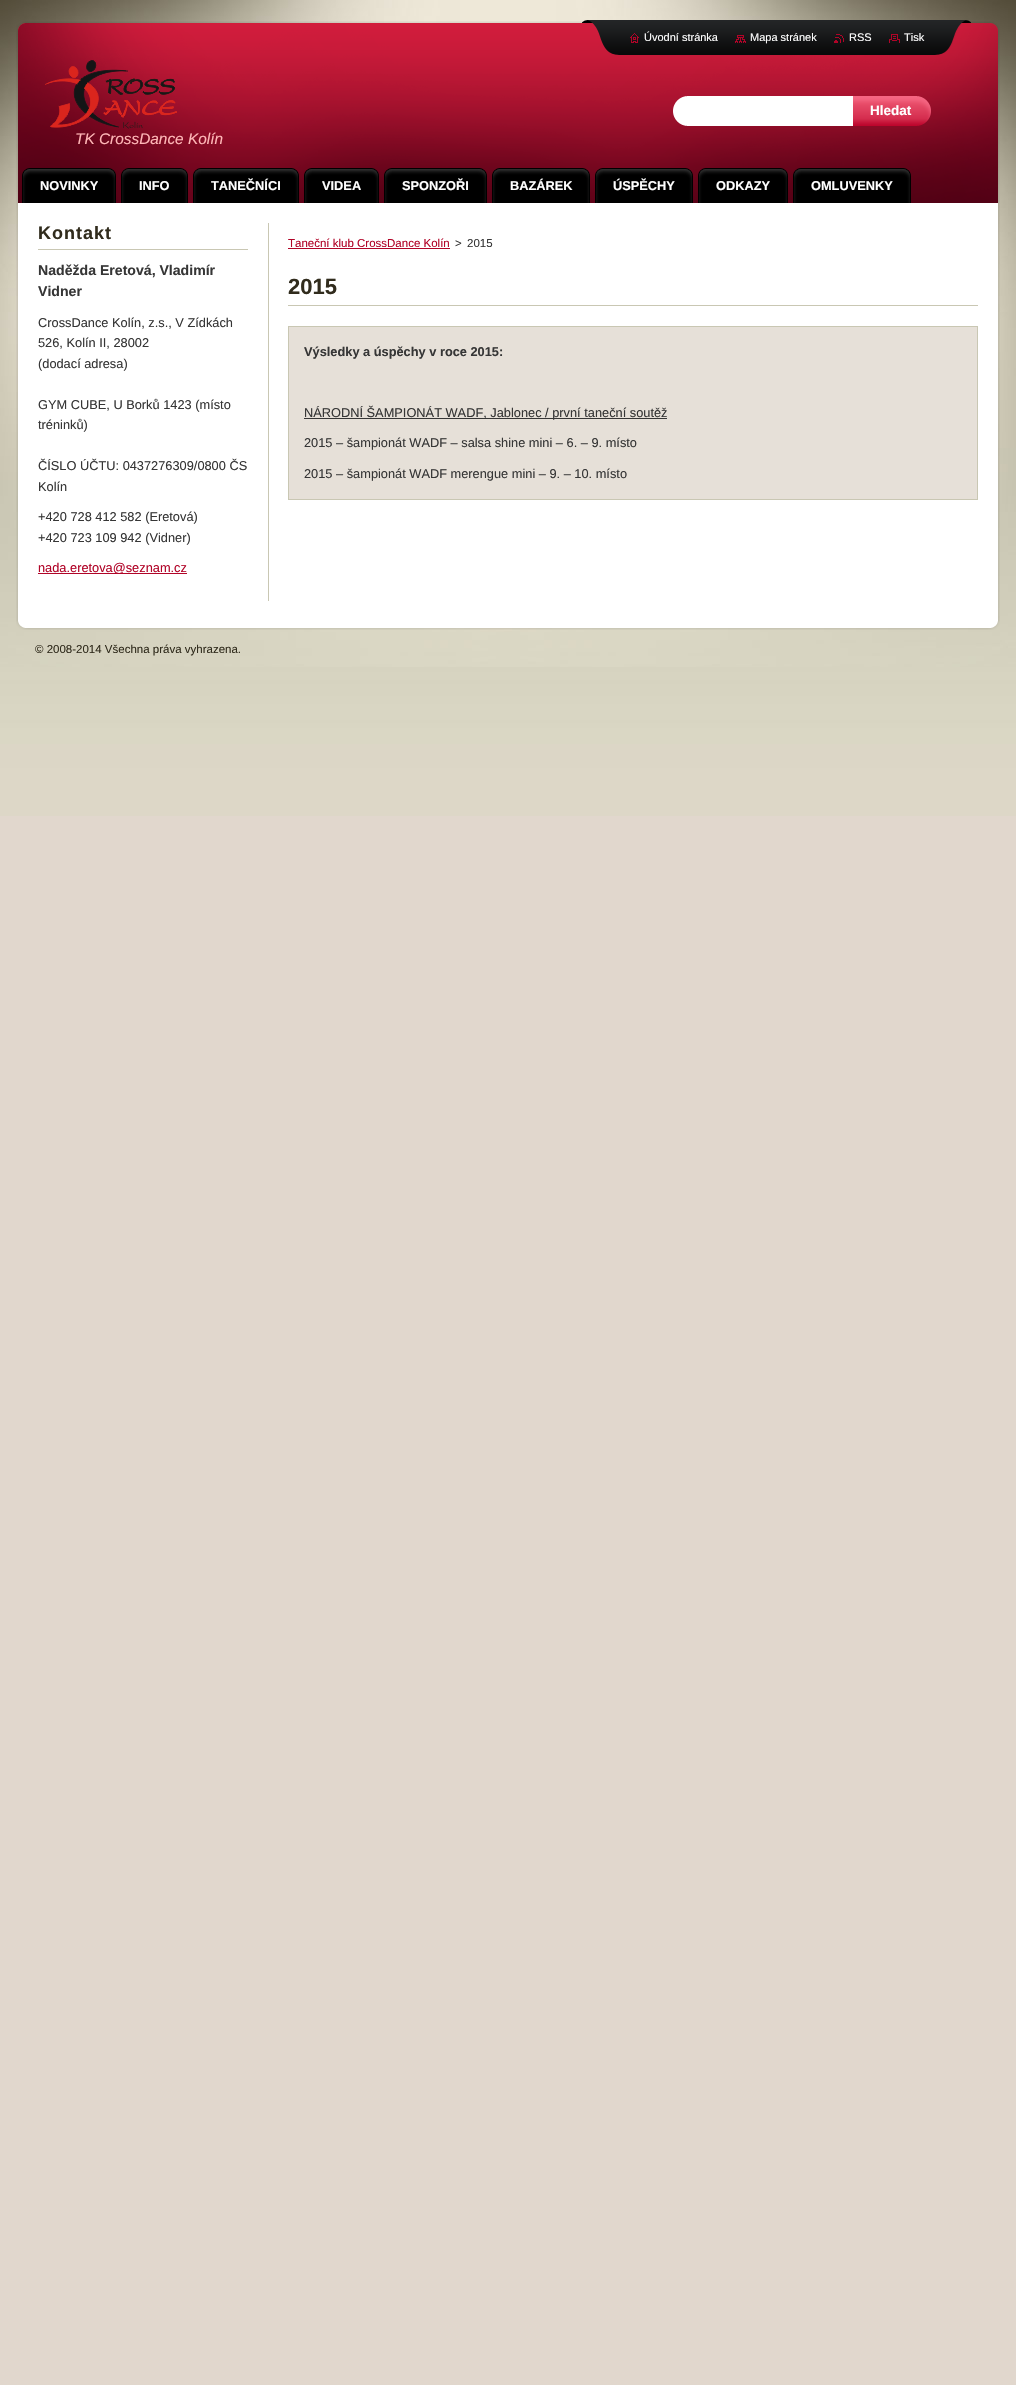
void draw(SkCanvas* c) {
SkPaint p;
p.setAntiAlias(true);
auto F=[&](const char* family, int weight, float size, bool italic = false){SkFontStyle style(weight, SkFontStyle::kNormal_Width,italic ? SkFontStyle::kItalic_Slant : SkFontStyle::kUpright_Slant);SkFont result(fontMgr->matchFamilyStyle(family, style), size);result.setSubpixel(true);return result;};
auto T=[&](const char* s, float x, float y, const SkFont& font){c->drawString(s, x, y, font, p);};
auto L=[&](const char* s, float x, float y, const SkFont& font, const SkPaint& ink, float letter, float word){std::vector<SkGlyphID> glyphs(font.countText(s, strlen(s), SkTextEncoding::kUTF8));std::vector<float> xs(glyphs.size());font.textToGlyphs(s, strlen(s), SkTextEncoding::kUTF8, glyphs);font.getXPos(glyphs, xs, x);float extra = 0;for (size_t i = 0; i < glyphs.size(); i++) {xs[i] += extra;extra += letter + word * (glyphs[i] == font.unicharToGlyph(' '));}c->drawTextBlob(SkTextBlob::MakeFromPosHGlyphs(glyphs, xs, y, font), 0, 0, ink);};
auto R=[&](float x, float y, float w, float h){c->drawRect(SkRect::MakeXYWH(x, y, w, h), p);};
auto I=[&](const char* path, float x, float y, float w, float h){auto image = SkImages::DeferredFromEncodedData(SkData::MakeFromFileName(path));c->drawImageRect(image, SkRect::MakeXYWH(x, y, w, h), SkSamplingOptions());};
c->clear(0xffe1d7cd);
I("1.png",0,667,1016,149);
I("2.png",0,0,1016,667);
I("11.png",16,21,984,182);
I("3.png",582,20,37,35);
I("4.png",619,20,352,35);
I("5.png",630,33,9,10);
auto f1 = F("Liberation Sans",400,11);
p.setColor(0xffffffff);
T("Úvodní stránka",644,41,f1);
I("6.png",735,35,11,8);
T("Mapa stránek",750,41,f1);
I("7.png",834,34,10,9);
T("RSS",849,41,f1);
I("8.png",889,34,11,9);
T("Tisk",904,41,f1);
I("9.png",673,96,180,30);
I("10.png",853,96,78,30);
auto f2 = F("Liberation Sans",700,13.5);
T("Hledat",870,115,f2);
I("12.png",45,60,132,69);
auto f3 = F("Liberation Sans",400,15.4,true);
p.setColor(0xffffb7b7);
T("TK CrossDance Kolín",75,144,f3);
I("13.png",22,168,8,35);
I("14.png",30,168,86,35);
auto f4 = F("Liberation Sans",700,12.8);
p.setColor(0xffffffff);
T("NOVINKY",40,190,f4);
I("15.png",121,168,8,35);
I("16.png",129,168,59,35);
T("INFO",139,190,f4);
I("17.png",193,168,8,35);
I("18.png",201,168,98,35);
T("TANEČNÍCI",211,190,f4);
I("19.png",304,168,8,35);
I("20.png",312,168,67,35);
T("VIDEA",322,190,f4);
I("21.png",384,168,8,35);
I("22.png",392,168,95,35);
T("SPONZOŘI",402,190,f4);
I("23.png",492,168,8,35);
I("24.png",500,168,90,35);
T("BAZÁREK",510,190,f4);
I("25.png",595,168,8,35);
I("26.png",603,168,90,35);
T("ÚSPĚCHY",613,190,f4);
I("27.png",698,168,8,35);
I("28.png",706,168,82,35);
T("ODKAZY",716,190,f4);
I("29.png",793,168,8,35);
I("30.png",801,168,110,35);
T("OMLUVENKY",811,190,f4);
I("31.png",16,621,984,9);
I("32.png",16,203,984,418);
p.setColor(0xffc9c7b3);
R(268,223,1,378);
R(38,249,210,1);
auto f5 = F("Liberation Sans",700,18);
p.setColor(0xff312c1d);
L("Kontakt",38,239,f5,p,1,0);
auto f6 = F("Liberation Sans",700,14.1);
p.setColor(0xff363636);
T("Naděžda Eretová, Vladimír",38,275,f6);
T("Vidner",38,296,f6);
auto f7 = F("Liberation Sans",400,12.8);
T("CrossDance Kolín, z.s., V Zídkách",38,327,f7);
T("526, Kolín II, 28002",38,347,f7);
T("(dodací adresa)",38,368,f7);
T("GYM CUBE, U Borků 1423 (místo",38,409,f7);
T("tréninků)",38,429,f7);
T("ČÍSLO ÚČTU: 0437276309/0800 ČS",38,470,f7);
T("Kolín",38,491,f7);
T("+420 728 412 582 (Eretová)",38,521,f7);
T("+420 723 109 942 (Vidner)",38,542,f7);
p.setColor(0xffb10428);
R(38,573,149,1);
T("nada.eretova@seznam.cz",38,572,f7);
auto f8 = F("Liberation Sans",400,11.5);
T("Taneční klub CrossDance Kolín",288,247,f8);
R(288,248,162,1);
p.setColor(0xff363636);
T(">",455,247,f8);
T("2015",467,247,f8);
p.setColor(0xffc9c7b3);
R(288,305,690,1);
auto f9 = F("Liberation Sans",700,22);
p.setColor(0xff312c1d);
T("2015",288,294,f9);
p.setColor(0xffe6e0d8);
c->drawRect(SkRect::MakeXYWH(288.5,326.5,689,173),p);
p.setStroke(true);
p.setStrokeWidth(1);
p.setColor(0xffc9c7b3);
c->drawRect(SkRect::MakeXYWH(288.5,326.5,689,173),p);
p.setStroke(false);
p.setColor(0xff363636);
T("Výsledky a úspěchy v roce 2015:",304,356,f4);
R(304,418,363,1);
T("NÁRODNÍ ŠAMPIONÁT WADF, Jablonec / první taneční soutěž",304,417,f7);
T("2015 – šampionát WADF – salsa shine mini – 6. – 9. místo",304,447,f7);
T("2015 – šampionát WADF merengue mini – 9. – 10. místo",304,478,f7);
p.setColor(0xff312c1d);
T("© 2008-2014 Všechna práva vyhrazena.",35,653,f8);
}
